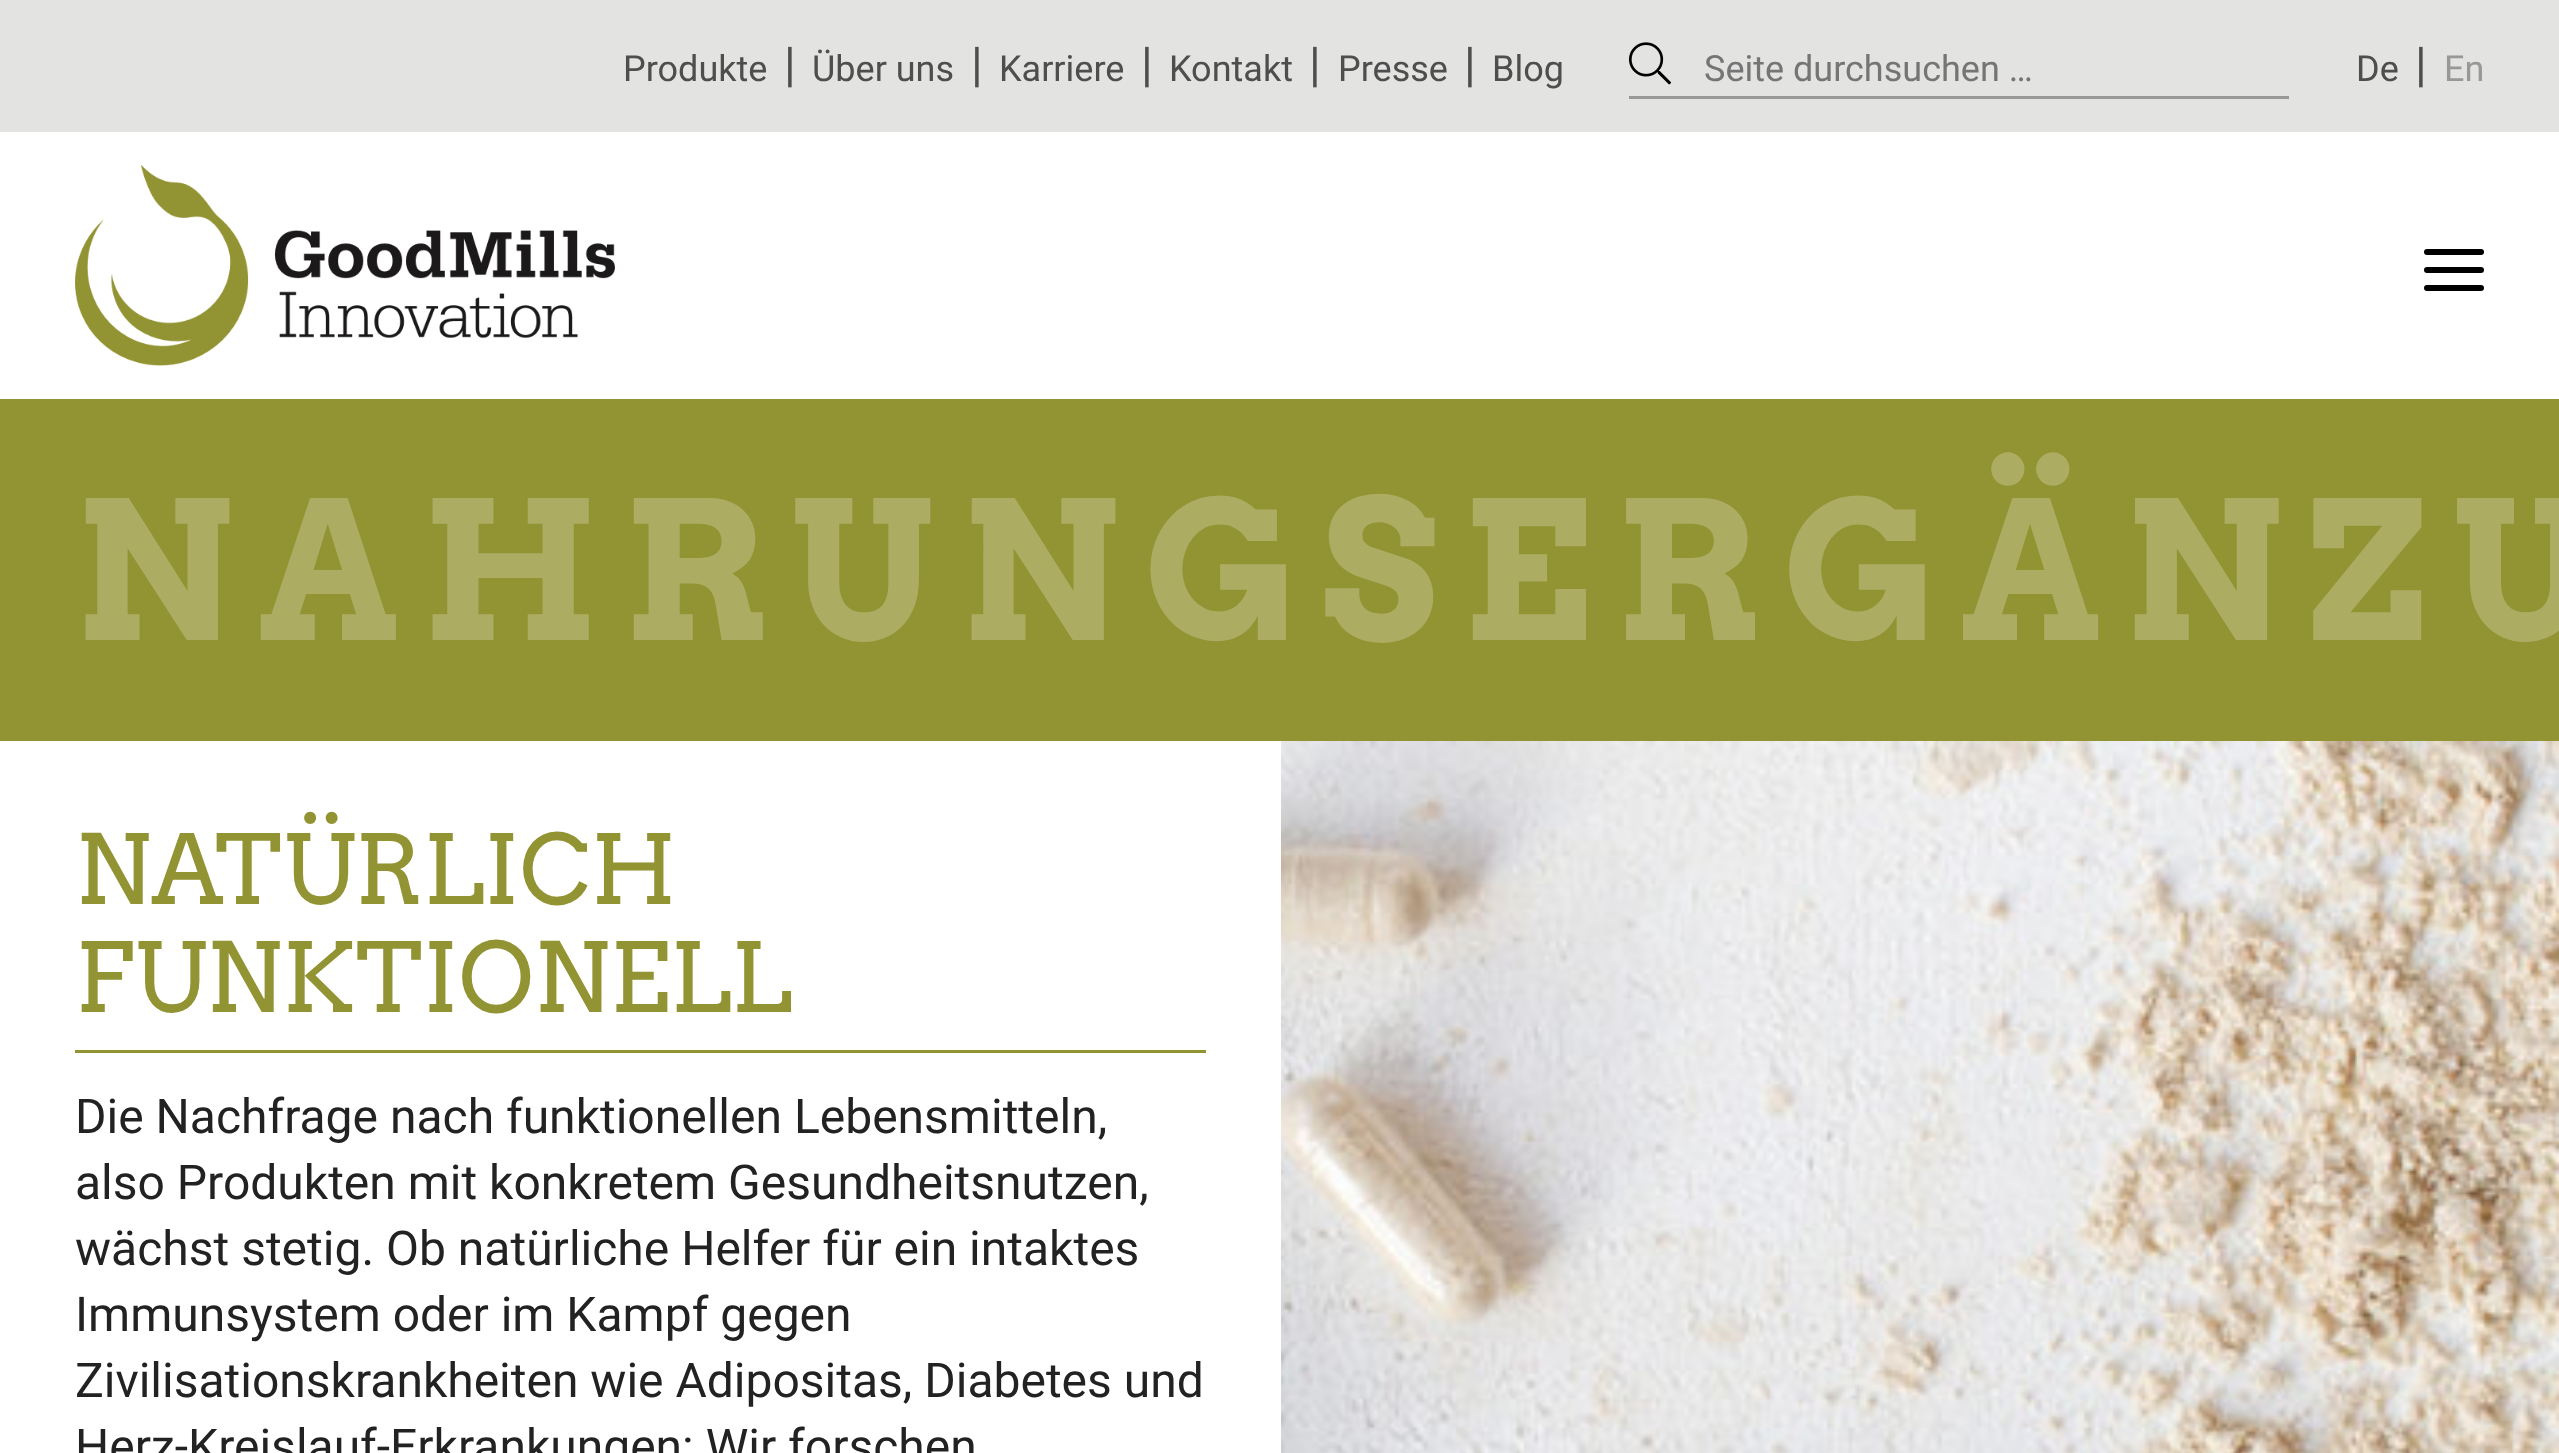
(async () => {
  const canvas = document.querySelector("canvas");
  canvas.width = 2559;
  canvas.height = 1453;
  const ctx = canvas.getContext("2d");
  ctx.miterLimit = 4;
  ctx.fontKerning = "normal";
  async function loadImage(src) {
    const img = new Image();
    img.src = src;
    await img.decode();
    return img;
  }

  ctx.fillStyle = "#ffffff";
  ctx.fillRect(0, 0, 2559, 1453);
  ctx.fillStyle = "#e3e4e2";
  ctx.fillRect(0, 0, 2559, 132);
  ctx.drawImage(await loadImage("img/1.png"), 1629, 42, 42, 43);
  ctx.fillStyle = "#989997";
  ctx.fillRect(1629, 96, 660, 3);
  ctx.drawImage(await loadImage("img/2.png"), 75, 165, 540, 201);
  ctx.fillStyle = "#000000";
  ctx.beginPath();
  ctx.roundRect(2424, 267, 60, 6, 3);
  ctx.fill();
  ctx.beginPath();
  ctx.roundRect(2424, 249, 60, 6, 3);
  ctx.fill();
  ctx.beginPath();
  ctx.roundRect(2424, 285, 60, 6, 3);
  ctx.fill();
  ctx.fillStyle = "#929332";
  ctx.fillRect(0, 399, 2559, 342);
  ctx.fillRect(75, 1050, 1131, 3);
  ctx.drawImage(await loadImage("img/3.png"), 1281, 741, 1278, 712);
  ctx.font = "36px Roboto";
  ctx.fillStyle = "#4d4e4d";
  ctx.fillText("Produkte", 623, 81);
  ctx.font = "48px Roboto";
  ctx.fillText("|", 784, 81);
  ctx.font = "36px Roboto";
  ctx.fillText("Über uns", 812, 81);
  ctx.font = "48px Roboto";
  ctx.fillText("|", 971, 81);
  ctx.font = "36px Roboto";
  ctx.fillText("Karriere", 999, 81);
  ctx.font = "48px Roboto";
  ctx.fillText("|", 1141, 81);
  ctx.font = "36px Roboto";
  ctx.fillText("Kontakt", 1169, 81);
  ctx.font = "48px Roboto";
  ctx.fillText("|", 1309, 81);
  ctx.font = "36px Roboto";
  ctx.fillText("Presse", 1338, 81);
  ctx.font = "48px Roboto";
  ctx.fillText("|", 1464, 81);
  ctx.font = "36px Roboto";
  ctx.fillText("Blog", 1492, 81);
  ctx.fillStyle = "#757575";
  ctx.fillText("Seite durchsuchen …", 1704, 81);
  ctx.fillStyle = "#4d4e4d";
  ctx.fillText("De", 2356, 81);
  ctx.font = "48px Roboto";
  ctx.fillText("|", 2415, 81);
  ctx.font = "36px Roboto";
  ctx.fillStyle = "#989997";
  ctx.fillText("En", 2444, 81);
  ctx.letterSpacing = "24px";
  ctx.font = "bold 192px Arvo";
  ctx.fillStyle = "#acad63";
  ctx.fillText("NAHRUNGSERGÄNZU", 75, 640);
  ctx.letterSpacing = "0px";
  ctx.font = "96px Arvo";
  ctx.fillStyle = "#929332";
  ctx.fillText("NATÜRLICH", 75, 904);
  ctx.fillText("FUNKTIONELL", 75, 1012);
  ctx.font = "48px Roboto";
  ctx.fillStyle = "#222222";
  for (const [text, x, y] of [
    ["Die Nachfrage nach funktionellen Lebensmitteln,", 75, 1133],
    ["also Produkten mit konkretem Gesundheitsnutzen,", 75, 1199],
    ["wächst stetig. Ob natürliche Helfer für ein intaktes", 75, 1265],
    ["Immunsystem oder im Kampf gegen", 75, 1331],
    ["Zivilisationskrankheiten wie Adipositas, Diabetes und", 75, 1397],
    ["Herz-Kreislauf-Erkrankungen: Wir forschen", 75, 1463],
  ]) {
    ctx.fillText(text, x, y);
  }
})();
